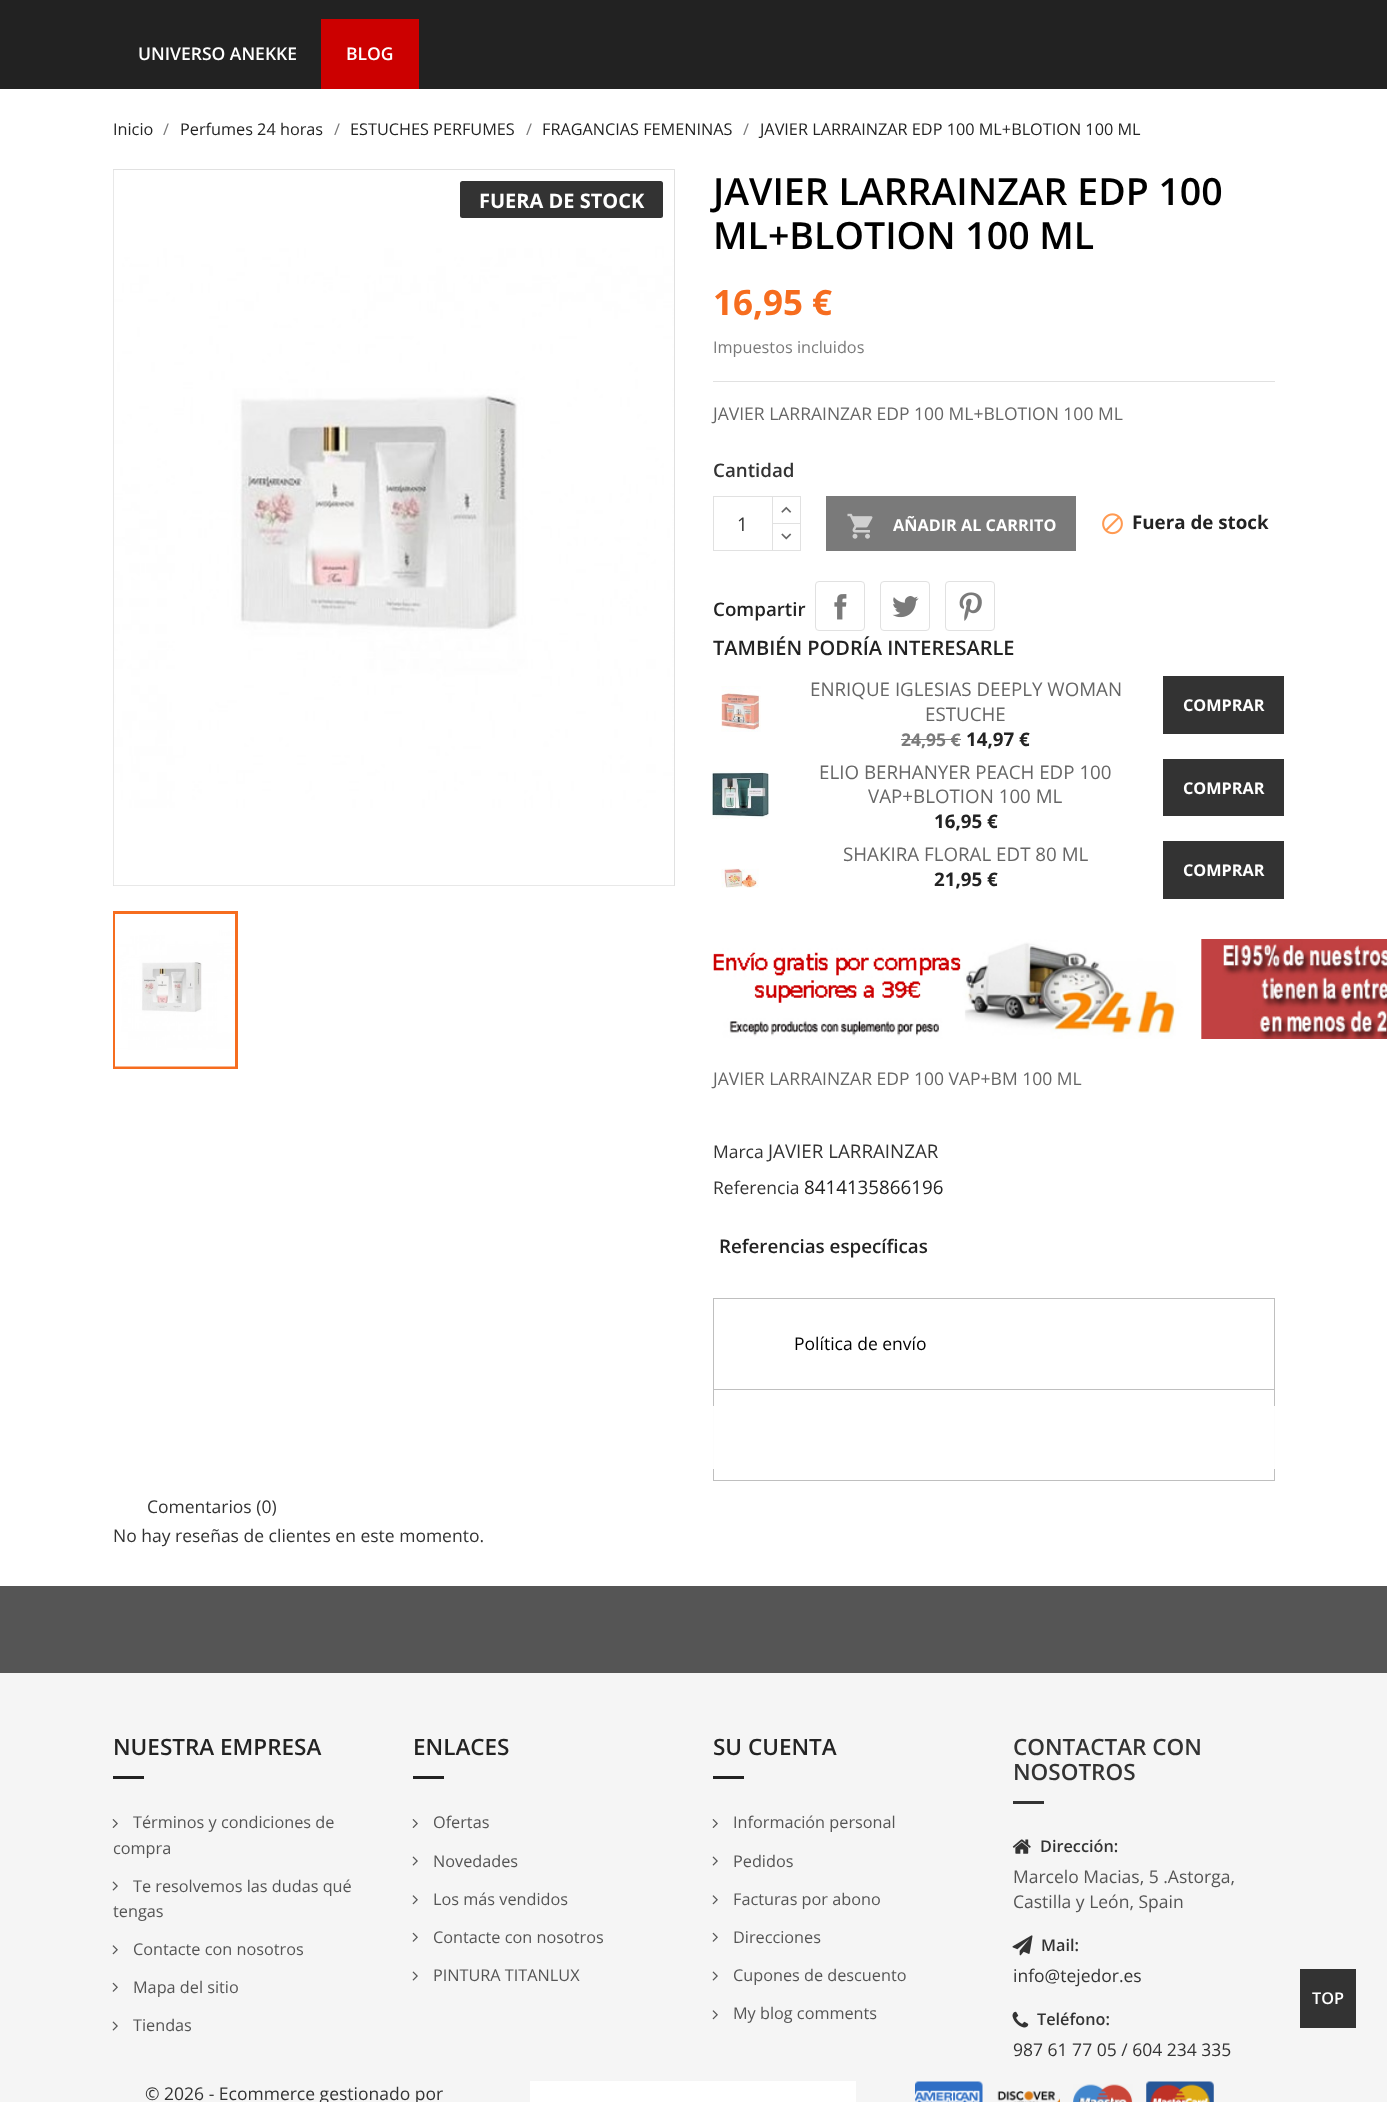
(async () => {
  const canvas = document.querySelector("canvas");
  canvas.width = 1387;
  canvas.height = 2102;
  const ctx = canvas.getContext("2d");
  ctx.miterLimit = 4;
  ctx.fontKerning = "normal";
  async function loadImage(src) {
    const img = new Image();
    img.src = src;
    await img.decode();
    return img;
  }

  ctx.fillStyle = "#ffffff";
  ctx.fillRect(0, 0, 1387, 2102);
  ctx.fillStyle = "#222222";
  ctx.fillRect(0, 0, 1387, 89);
  ctx.fillStyle = "#cc0000";
  ctx.fillRect(321, 19, 98, 70);
  ctx.strokeStyle = "#e1e1e1";
  ctx.strokeRect(113.5, 169.5, 561, 716);
  ctx.drawImage(await loadImage("img/1.png"), 113, 170, 561, 716);
  ctx.strokeStyle = "#f66d1f";
  ctx.lineWidth = 3;
  ctx.strokeRect(114.5, 912.5, 122, 155);
  ctx.drawImage(await loadImage("img/2.png"), 115, 914, 120, 153);
  ctx.fillStyle = "#333333";
  ctx.beginPath();
  ctx.roundRect(460, 181, 203, 37, 2.5);
  ctx.fill();
  ctx.fillStyle = "#e1e1e1";
  ctx.fillRect(713, 381, 562, 1);
  ctx.strokeStyle = "#e1e1e1";
  ctx.lineWidth = 1;
  ctx.strokeRect(771.5, 496.5, 29, 28);
  ctx.fillStyle = "#ffffff";
  ctx.fillRect(773, 524, 27, 1);
  ctx.strokeRect(771.5, 523.5, 29, 27);
  ctx.fillRect(771, 497, 1, 53);
  ctx.strokeRect(713.5, 496.5, 59, 54);
  ctx.drawImage(await loadImage("img/3.png"), 781, 506, 11, 7);
  ctx.drawImage(await loadImage("img/4.png"), 781, 533, 11, 7);
  ctx.fillStyle = "#7a7a7a";
  ctx.fillRect(826, 496, 250, 55);
  ctx.drawImage(await loadImage("img/5.png"), 847, 513, 26, 26);
  ctx.drawImage(await loadImage("img/6.png"), 1102, 513, 21, 22);
  ctx.drawImage(await loadImage("img/7.png"), 834, 594, 13, 26);
  ctx.beginPath();
  ctx.roundRect(815.5, 581.5, 49, 49, 3.5);
  ctx.stroke();
  ctx.drawImage(await loadImage("img/8.png"), 892, 596, 27, 22);
  ctx.beginPath();
  ctx.roundRect(880.5, 581.5, 49, 49, 3.5);
  ctx.stroke();
  ctx.drawImage(await loadImage("img/9.png"), 959, 592, 23, 29);
  ctx.beginPath();
  ctx.roundRect(945.5, 581.5, 49, 49, 3.5);
  ctx.stroke();
  ctx.fillRect(901, 739, 60, 1);
  ctx.drawImage(await loadImage("img/10.png"), 721, 686, 40, 46);
  ctx.strokeStyle = "#bfbfbf";
  ctx.strokeRect(713.5, 1298.5, 561, 182);
  ctx.fillStyle = "rgba(255, 255, 255, 0.8)";
  ctx.fillRect(713, 1406, 562, 63);
  ctx.fillStyle = "#333333";
  ctx.fillRect(1163, 676, 121, 58);
  ctx.drawImage(await loadImage("img/11.png"), 712, 770, 57, 49);
  ctx.fillStyle = "rgba(255, 255, 255, 0.8)";
  ctx.fillRect(713, 1406, 562, 63);
  ctx.fillStyle = "#333333";
  ctx.fillRect(1163, 759, 121, 57);
  ctx.drawImage(await loadImage("img/12.png"), 721, 868, 38, 20);
  ctx.fillRect(1163, 841, 121, 58);
  ctx.drawImage(await loadImage("img/13.png"), 713, 939, 674, 100);
  for (const [x, y, w, h, color] of [
    [714, 1389, 560, 1, "#bfbfbf"],
    [0, 1673, 1387, 429, "#f5f5f5"],
    [0, 1586, 1387, 87, "#555555"],
    [113, 1776, 31, 3, "#222222"],
  ]) {
    ctx.fillStyle = color;
    ctx.fillRect(x, y, w, h);
  }
  ctx.drawImage(await loadImage("img/14.png"), 112, 1819, 6, 9);
  ctx.drawImage(await loadImage("img/15.png"), 112, 1881, 6, 10);
  ctx.drawImage(await loadImage("img/16.png"), 112, 1945, 6, 10);
  ctx.drawImage(await loadImage("img/17.png"), 112, 1982, 6, 10);
  ctx.drawImage(await loadImage("img/15.png"), 112, 2021, 6, 10);
  ctx.fillRect(413, 1776, 31, 3);
  ctx.drawImage(await loadImage("img/14.png"), 412, 1819, 6, 9);
  ctx.drawImage(await loadImage("img/15.png"), 412, 1856, 6, 10);
  ctx.drawImage(await loadImage("img/16.png"), 412, 1895, 6, 10);
  ctx.drawImage(await loadImage("img/17.png"), 412, 1932, 6, 10);
  ctx.drawImage(await loadImage("img/15.png"), 412, 1971, 6, 10);
  ctx.fillRect(713, 1776, 31, 3);
  ctx.drawImage(await loadImage("img/14.png"), 712, 1819, 6, 9);
  ctx.drawImage(await loadImage("img/15.png"), 712, 1856, 6, 10);
  ctx.drawImage(await loadImage("img/16.png"), 712, 1895, 6, 10);
  ctx.drawImage(await loadImage("img/17.png"), 712, 1932, 6, 10);
  ctx.drawImage(await loadImage("img/15.png"), 712, 1971, 6, 10);
  ctx.drawImage(await loadImage("img/16.png"), 712, 2010, 6, 10);
  ctx.fillStyle = "#333333";
  ctx.fillRect(1013, 1801, 31, 3);
  ctx.drawImage(await loadImage("img/18.png"), 1012, 1839, 19, 15);
  ctx.drawImage(await loadImage("img/19.png"), 1012, 1935, 21, 21);
  ctx.drawImage(await loadImage("img/20.png"), 1012, 2011, 17, 17);
  ctx.fillRect(1300, 1969, 56, 59);
  ctx.fillStyle = "#ffffff";
  ctx.fillRect(530, 2081, 326, 21);
  ctx.drawImage(await loadImage("img/21.png"), 915, 2081, 68, 21);
  ctx.drawImage(await loadImage("img/22.png"), 997, 2091, 63, 11);
  ctx.drawImage(await loadImage("img/23.png"), 1073, 2084, 60, 18);
  ctx.drawImage(await loadImage("img/24.png"), 1146, 2081, 68, 21);
  ctx.font = "600 17.5px Open Sans";
  ctx.fillText("UNIVERSO ANEKKE", 138, 60);
  ctx.fillText("BLOG", 346, 60);
  ctx.font = "16.25px Open Sans";
  ctx.fillStyle = "#232323";
  ctx.fillText("Inicio", 113, 135);
  ctx.fillStyle = "#7a7a7a";
  ctx.fillText("/", 163, 135);
  ctx.fillStyle = "#232323";
  ctx.fillText("Perfumes 24 horas", 180, 135);
  ctx.fillStyle = "#7a7a7a";
  ctx.fillText("/", 334, 135);
  ctx.fillStyle = "#232323";
  ctx.fillText("ESTUCHES PERFUMES", 350, 135);
  ctx.fillStyle = "#7a7a7a";
  ctx.fillText("/", 526, 135);
  ctx.fillStyle = "#232323";
  ctx.fillText("FRAGANCIAS FEMENINAS", 542, 135);
  ctx.fillStyle = "#7a7a7a";
  ctx.fillText("/", 743, 135);
  ctx.fillStyle = "#232323";
  ctx.fillText("JAVIER LARRAINZAR EDP 100 ML+BLOTION 100 ML", 760, 135);
  ctx.font = "bold 20px Open Sans";
  ctx.fillStyle = "#ffffff";
  ctx.fillText("FUERA DE STOCK", 479, 208);
  ctx.font = "600 37.5px Open Sans";
  ctx.fillStyle = "#000000";
  ctx.fillText("JAVIER LARRAINZAR EDP 100", 713, 205);
  ctx.fillText("ML+BLOTION 100 ML", 713, 249);
  ctx.font = "bold 35px Open Sans";
  ctx.fillStyle = "#f66d1f";
  ctx.fillText("16,95 €", 713, 315);
  ctx.font = "16.25px Open Sans";
  ctx.fillStyle = "#7a7a7a";
  ctx.fillText("Impuestos incluidos", 713, 353);
  ctx.font = "17.5px Open Sans";
  ctx.fillStyle = "#666666";
  ctx.fillText("JAVIER LARRAINZAR EDP 100 ML+BLOTION 100 ML", 713, 420);
  ctx.font = "600 18.75px Open Sans";
  ctx.fillStyle = "#333333";
  ctx.fillText("Cantidad", 713, 477);
  ctx.font = "18.75px Open Sans";
  ctx.fillText("1", 737, 531);
  ctx.font = "bold 16.25px Open Sans";
  ctx.fillStyle = "#ffffff";
  ctx.fillText("AÑADIR AL CARRITO", 893, 531);
  ctx.font = "bold 18.75px Open Sans";
  ctx.fillStyle = "#232323";
  ctx.fillText("Fuera de stock", 1132, 529);
  ctx.font = "600 18.75px Open Sans";
  ctx.fillText("Compartir", 713, 616);
  ctx.font = "600 20px Open Sans";
  ctx.fillText("TAMBIÉN PODRÍA INTERESARLE", 713, 655);
  ctx.font = "18.75px Open Sans";
  ctx.fillStyle = "#666666";
  ctx.fillText("ENRIQUE IGLESIAS DEEPLY WOMAN", 810, 696);
  ctx.fillText("ESTUCHE", 925, 721);
  ctx.font = "bold 17.5px Open Sans";
  ctx.fillStyle = "#7a7a7a";
  ctx.fillText("24,95 €", 901, 746);
  ctx.font = "bold 18.75px Open Sans";
  ctx.fillStyle = "#232323";
  ctx.fillText("14,97 €", 966, 746);
  ctx.font = "bold 16.25px Open Sans";
  ctx.fillStyle = "#ffffff";
  ctx.fillText("COMPRAR", 1183, 711);
  ctx.font = "18.75px Open Sans";
  ctx.fillStyle = "#666666";
  ctx.fillText("ELIO BERHANYER PEACH EDP 100", 819, 779);
  ctx.fillText("VAP+BLOTION 100 ML", 868, 803);
  ctx.font = "bold 18.75px Open Sans";
  ctx.fillStyle = "#232323";
  ctx.fillText("16,95 €", 934, 828);
  ctx.font = "bold 16.25px Open Sans";
  ctx.fillStyle = "#ffffff";
  ctx.fillText("COMPRAR", 1183, 794);
  ctx.font = "18.75px Open Sans";
  ctx.fillStyle = "#666666";
  ctx.fillText("SHAKIRA FLORAL EDT 80 ML", 843, 861);
  ctx.font = "bold 18.75px Open Sans";
  ctx.fillStyle = "#232323";
  ctx.fillText("21,95 €", 934, 886);
  ctx.font = "bold 16.25px Open Sans";
  ctx.fillStyle = "#ffffff";
  ctx.fillText("COMPRAR", 1183, 876);
  ctx.font = "17.5px Open Sans";
  ctx.fillStyle = "#666666";
  ctx.fillText("JAVIER LARRAINZAR EDP 100 VAP+BM 100 ML", 713, 1085);
  ctx.fillStyle = "#333333";
  ctx.fillText("Marca", 713, 1158);
  ctx.font = "18.75px Open Sans";
  ctx.fillText("JAVIER LARRAINZAR", 768, 1158);
  ctx.font = "17.5px Open Sans";
  ctx.fillText("Referencia", 713, 1194);
  ctx.font = "18.75px Open Sans";
  ctx.fillStyle = "#232323";
  ctx.fillText("8414135866196", 804, 1194);
  ctx.font = "600 18.75px Open Sans";
  ctx.fillText("Referencias específicas", 719, 1253);
  ctx.font = "17.5px Open Sans";
  ctx.fillStyle = "#000000";
  ctx.fillText("Política de envío", 794, 1350);
  ctx.fillStyle = "#333333";
  ctx.fillText("Comentarios (0)", 147, 1513);
  ctx.fillText("No hay reseñas de clientes en este momento.", 113, 1542);
  ctx.font = "600 22.5px Open Sans";
  ctx.fillStyle = "#232323";
  ctx.fillText("NUESTRA EMPRESA", 113, 1755);
  ctx.font = "16.25px Open Sans";
  ctx.fillStyle = "#555555";
  for (const [text, x, y] of [
    ["Términos y condiciones de", 133, 1828],
    ["compra", 113, 1854],
    ["Te resolvemos las dudas qué", 133, 1892],
    ["tengas", 113, 1917],
    ["Contacte con nosotros", 133, 1955],
    ["Mapa del sitio", 133, 1993],
    ["Tiendas", 133, 2031],
  ]) {
    ctx.fillText(text, x, y);
  }
  ctx.font = "600 22.5px Open Sans";
  ctx.fillStyle = "#232323";
  ctx.fillText("ENLACES", 413, 1755);
  ctx.font = "16.25px Open Sans";
  ctx.fillStyle = "#555555";
  for (const [text, x, y] of [
    ["Ofertas", 433, 1828],
    ["Novedades", 433, 1867],
    ["Los más vendidos", 433, 1905],
    ["Contacte con nosotros", 433, 1943],
    ["PINTURA TITANLUX", 433, 1981],
  ]) {
    ctx.fillText(text, x, y);
  }
  ctx.font = "600 22.5px Open Sans";
  ctx.fillStyle = "#232323";
  ctx.fillText("SU CUENTA", 713, 1755);
  ctx.font = "16.25px Open Sans";
  ctx.fillStyle = "#555555";
  for (const [text, x, y] of [
    ["Información personal", 733, 1828],
    ["Pedidos", 733, 1867],
    ["Facturas por abono", 733, 1905],
    ["Direcciones", 733, 1943],
    ["Cupones de descuento", 733, 1981],
    ["My blog comments", 733, 2019],
  ]) {
    ctx.fillText(text, x, y);
  }
  ctx.font = "600 22.5px Open Sans";
  ctx.fillStyle = "#333333";
  ctx.fillText("CONTACTAR CON", 1013, 1755);
  ctx.fillText("NOSOTROS", 1013, 1780);
  ctx.font = "600 16.25px Open Sans";
  ctx.fillText("Dirección:", 1040, 1852);
  ctx.font = "17.5px Open Sans";
  ctx.fillStyle = "#555555";
  ctx.fillText("Marcelo Macias, 5 .Astorga,", 1013, 1883);
  ctx.fillText("Castilla y León, Spain", 1013, 1908);
  ctx.font = "600 16.25px Open Sans";
  ctx.fillStyle = "#333333";
  ctx.fillText("Mail:", 1041, 1951);
  ctx.font = "17.5px Open Sans";
  ctx.fillText("info@tejedor.es", 1013, 1982);
  ctx.font = "600 16.25px Open Sans";
  ctx.fillText("Teléfono:", 1037, 2025);
  ctx.font = "17.5px Open Sans";
  ctx.fillText("987 61 77 05 / 604 234 335", 1013, 2056);
  ctx.font = "600 16.25px Open Sans";
  ctx.fillStyle = "#ffffff";
  ctx.fillText("TOP", 1312, 2004);
  ctx.font = "17.5px Open Sans";
  ctx.fillStyle = "#333333";
  ctx.fillText("© 2026 - Ecommerce gestionado por", 145, 2100);
})();
